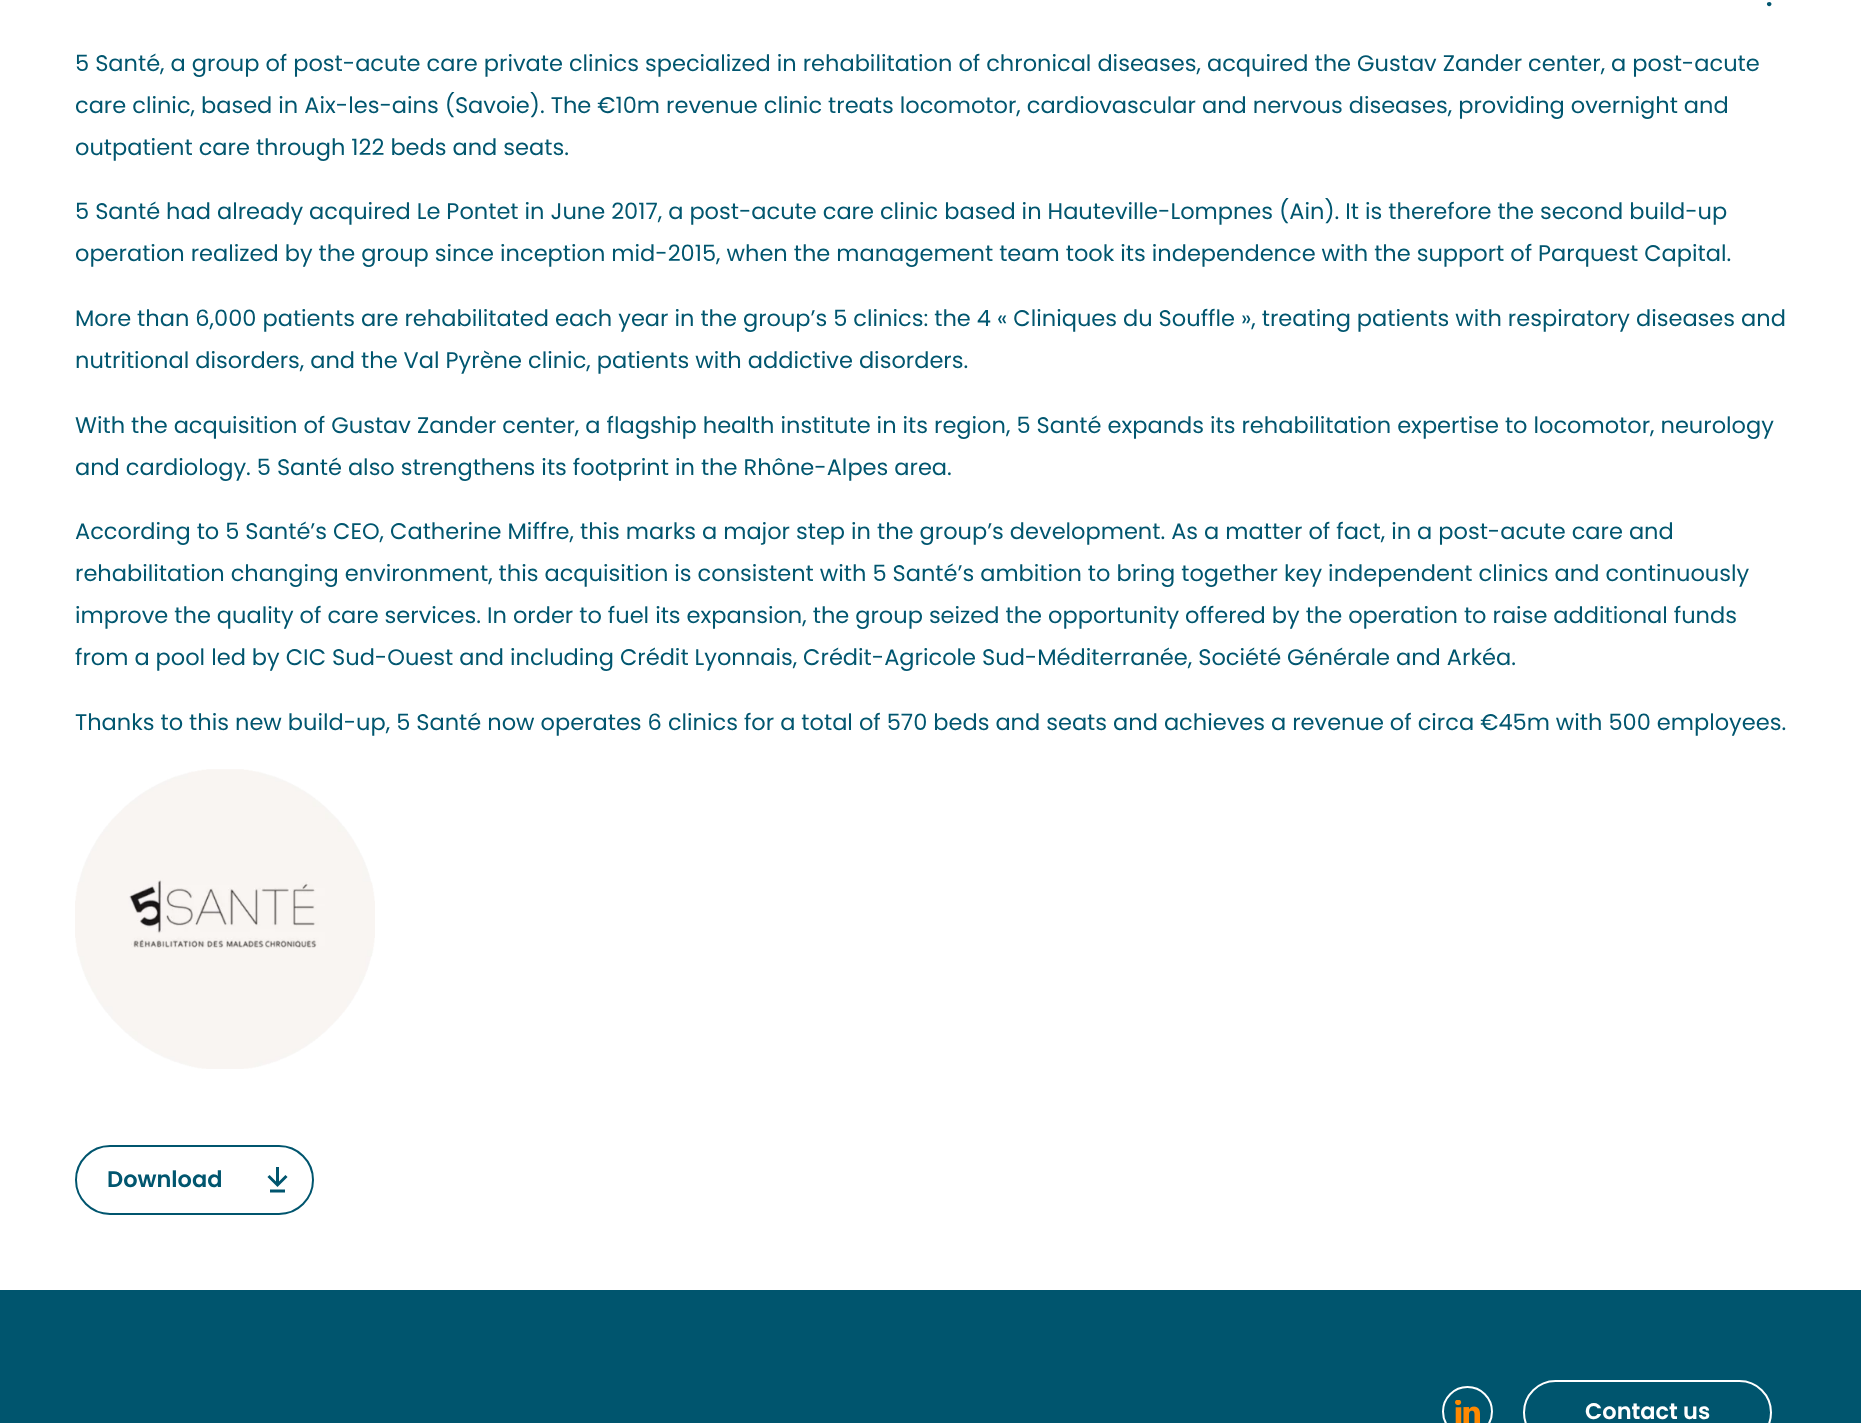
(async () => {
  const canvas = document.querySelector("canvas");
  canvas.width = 1861;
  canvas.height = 1423;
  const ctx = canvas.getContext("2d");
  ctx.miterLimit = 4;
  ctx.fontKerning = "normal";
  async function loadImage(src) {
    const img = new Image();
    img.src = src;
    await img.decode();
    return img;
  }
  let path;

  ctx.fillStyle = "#ffffff";
  ctx.fillRect(0, 0, 1861, 1423);
  ctx.drawImage(await loadImage("img/1.png"), 75, 769, 300, 300);
  ctx.beginPath();
  ctx.roundRect(76, 1146, 237, 68, 34);
  ctx.strokeStyle = "#00556e";
  ctx.lineWidth = 2;
  ctx.stroke();
  path = new Path2D("M270 1191H285M268.5 1176L277.5 1185L286.5 1176M277.5 1185V1167");
  ctx.lineWidth = 3;
  ctx.stroke(path);
  ctx.fillStyle = "#00556e";
  ctx.fillRect(0, 1290, 1861, 133);
  ctx.beginPath();
  ctx.arc(1467.5, 1411.5, 24.5, 0, Math.PI * 2);
  ctx.strokeStyle = "#ffffff";
  ctx.lineWidth = 2;
  ctx.stroke();
  ctx.drawImage(await loadImage("img/2.png"), 1455, 1400, 25, 23);
  ctx.beginPath();
  ctx.roundRect(1524, 1381, 247, 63, 31.5);
  ctx.stroke();
  ctx.font = "bold 22.5px Poppins";
  ctx.fillStyle = "#01566f";
  ctx.fillText(".", 1766, 6);
  ctx.font = "22.5px Poppins";
  for (const [text, x, y] of [
    ["5 Santé, a group of post-acute care private clinics specialized in rehabilitation of chronical diseases, acquired the Gustav Zander center, a post-acute", 75, 71],
    ["care clinic, based in Aix-les-ains (Savoie). The €10m revenue clinic treats locomotor, cardiovascular and nervous diseases, providing overnight and", 75, 113],
    ["outpatient care through 122 beds and seats.", 75, 155],
    ["5 Santé had already acquired Le Pontet in June 2017, a post-acute care clinic based in Hauteville-Lompnes (Ain). It is therefore the second build-up", 75, 219],
    ["operation realized by the group since inception mid-2015, when the management team took its independence with the support of Parquest Capital.", 75, 261],
    ["More than 6,000 patients are rehabilitated each year in the group’s 5 clinics: the 4 « Cliniques du Souffle », treating patients with respiratory diseases and", 75, 326],
    ["nutritional disorders, and the Val Pyrène clinic, patients with addictive disorders.", 75, 368],
    ["With the acquisition of Gustav Zander center, a flagship health institute in its region, 5 Santé expands its rehabilitation expertise to locomotor, neurology", 75, 433],
    ["and cardiology. 5 Santé also strengthens its footprint in the Rhône-Alpes area.", 75, 475],
    ["According to 5 Santé’s CEO, Catherine Miffre, this marks a major step in the group’s development. As a matter of fact, in a post-acute care and", 75, 539],
    ["rehabilitation changing environment, this acquisition is consistent with 5 Santé’s ambition to bring together key independent clinics and continuously", 75, 581],
    ["improve the quality of care services. In order to fuel its expansion, the group seized the opportunity offered by the operation to raise additional funds", 75, 623],
    ["from a pool led by CIC Sud-Ouest and including Crédit Lyonnais, Crédit-Agricole Sud-Méditerranée, Société Générale and Arkéa.", 75, 665],
    ["Thanks to this new build-up, 5 Santé now operates 6 clinics for a total of 570 beds and seats and achieves a revenue of circa €45m with 500 employees.", 75, 730],
  ]) {
    ctx.fillText(text, x, y);
  }
  ctx.font = "600 22.5px Poppins";
  ctx.fillText("Download", 107, 1187);
  ctx.fillStyle = "#ffffff";
  ctx.fillText("Contact us", 1585, 1419);
})();
